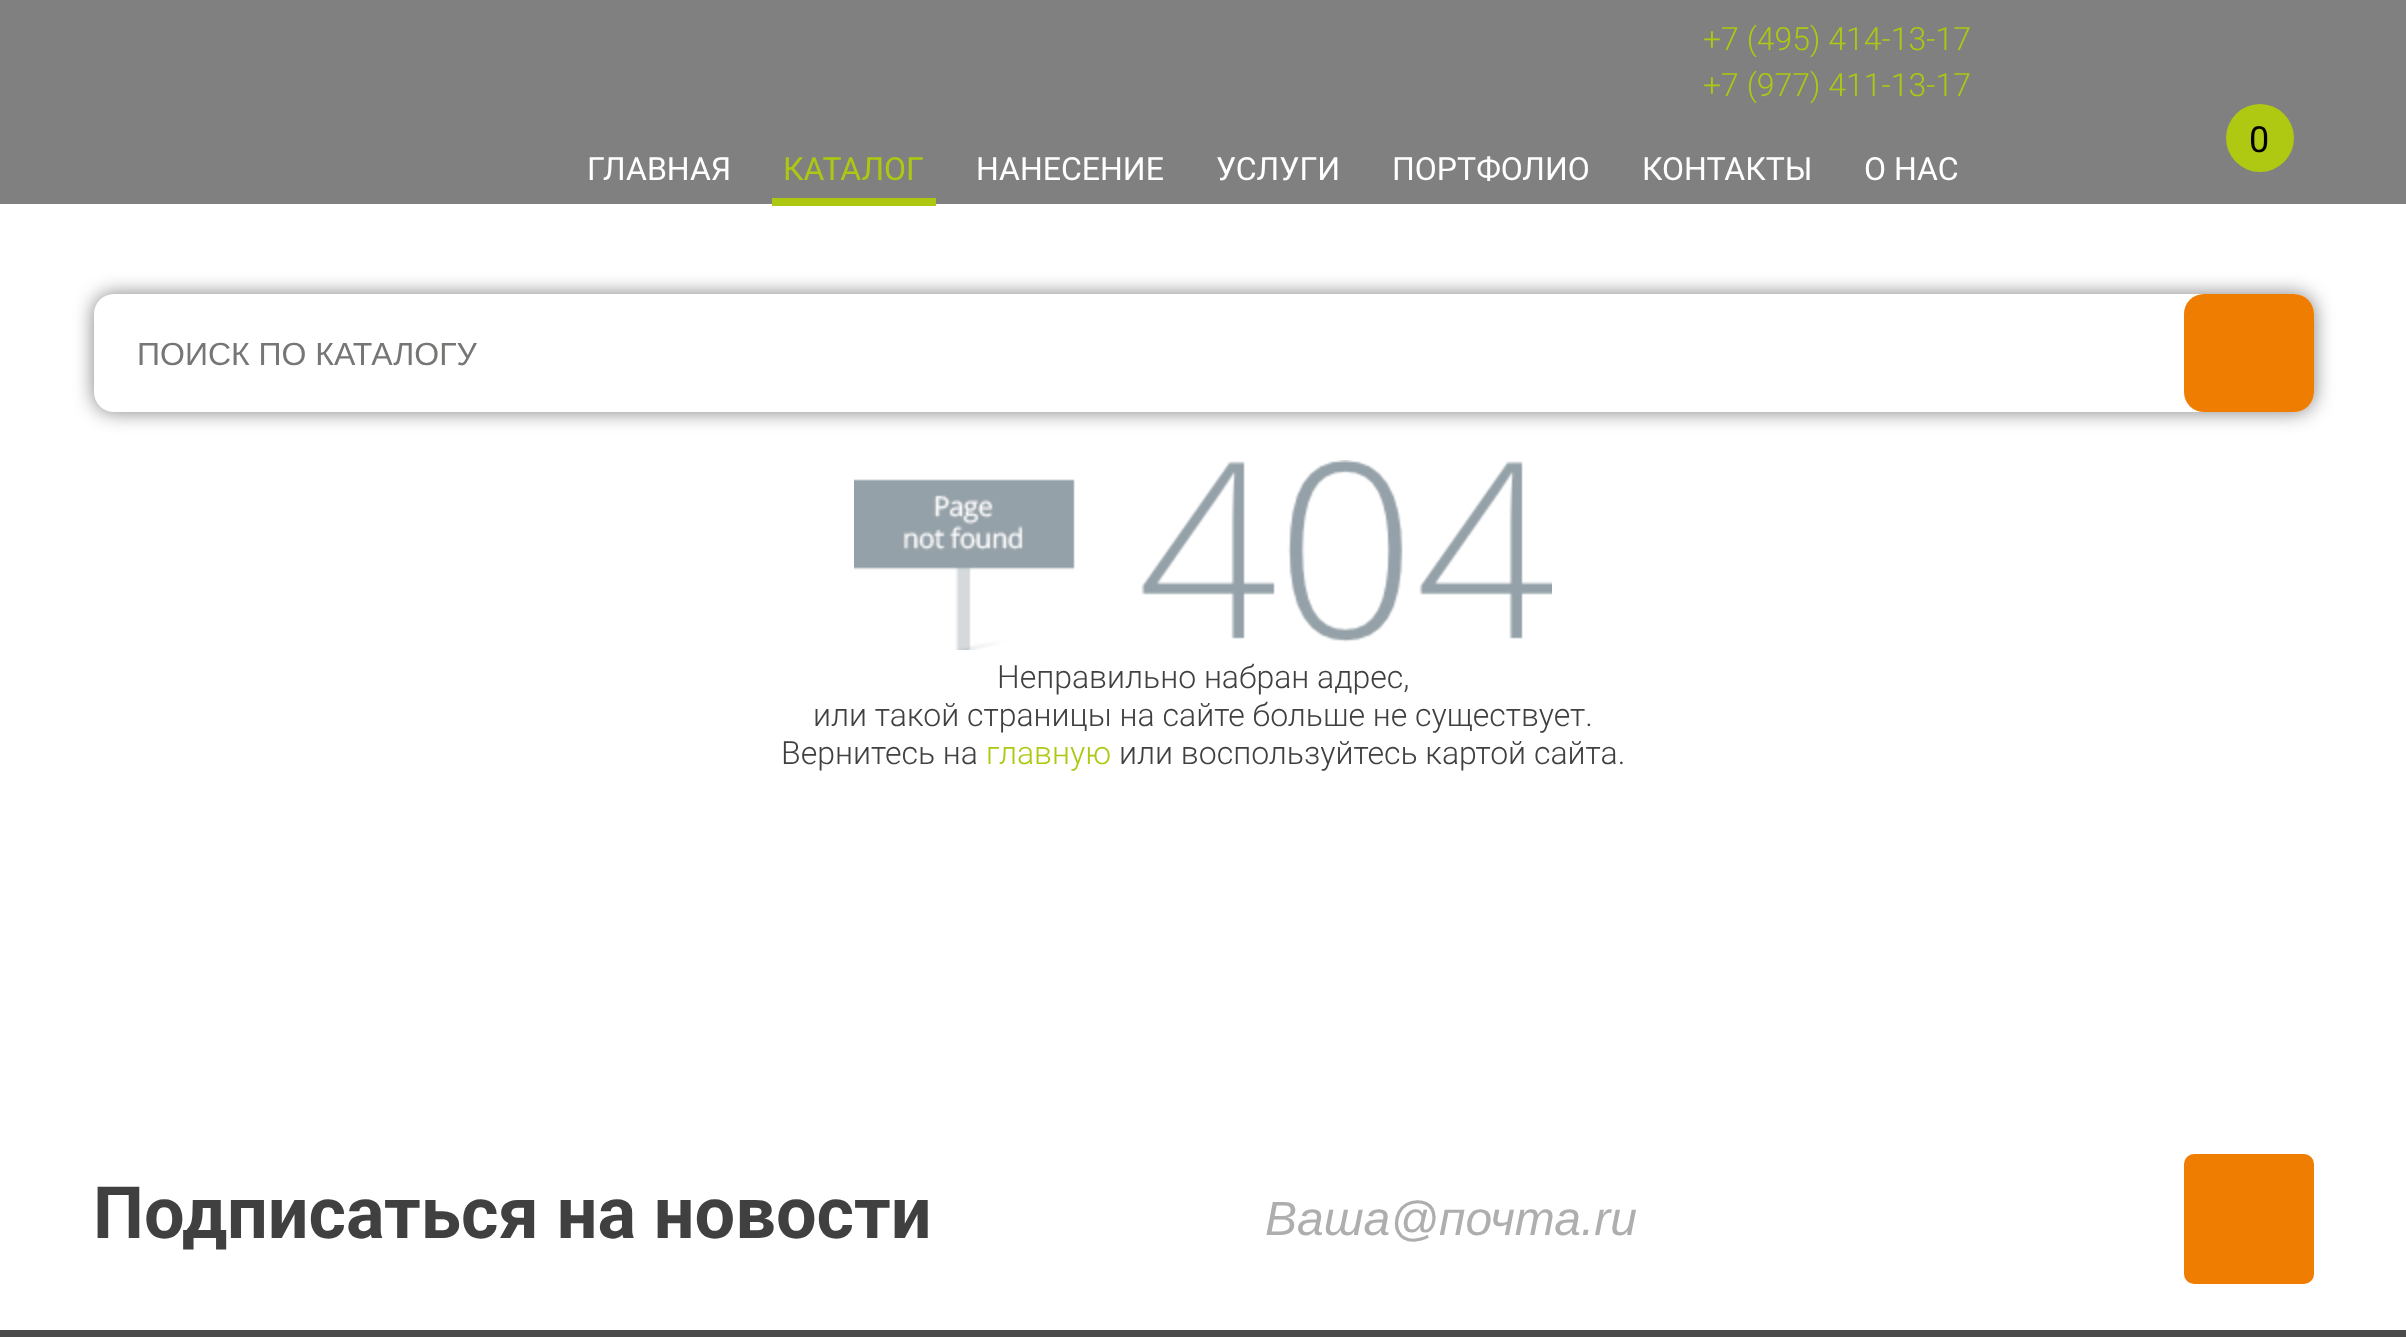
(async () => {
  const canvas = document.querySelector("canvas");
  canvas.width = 2406;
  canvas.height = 1337;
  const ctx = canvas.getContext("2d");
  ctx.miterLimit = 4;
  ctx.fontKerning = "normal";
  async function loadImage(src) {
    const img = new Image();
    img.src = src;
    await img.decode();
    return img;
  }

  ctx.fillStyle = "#ffffff";
  ctx.fillRect(0, 0, 2406, 1337);
  ctx.fillStyle = "#808080";
  ctx.fillRect(0, 0, 2406, 204);
  ctx.fillStyle = "#aec811";
  ctx.fillRect(772, 198, 164, 8);
  ctx.fillStyle = "#afc811";
  ctx.beginPath();
  ctx.arc(2260, 138, 34, 0, Math.PI * 2);
  ctx.fill();
  ctx.fillStyle = "rgba(0, 0, 0, 0.5)";
  ctx.filter = "blur(10px)";
  ctx.beginPath();
  ctx.roundRect(94, 294, 2220, 118, 20);
  ctx.fill();
  ctx.filter = "none";
  ctx.fillStyle = "#ffffff";
  ctx.beginPath();
  ctx.roundRect(94, 294, 2220, 118, 20);
  ctx.fill();
  ctx.fillStyle = "#ee7d02";
  ctx.beginPath();
  ctx.roundRect(2184, 294, 130, 118, 20);
  ctx.fill();
  ctx.drawImage(await loadImage("img/1.png"), 854, 460, 698, 190);
  ctx.beginPath();
  ctx.roundRect(2184, 1154, 130, 130, 10);
  ctx.fill();
  ctx.fillStyle = "#4b4b4b";
  ctx.fillRect(0, 1330, 2406, 7);
  ctx.font = "300 32px Roboto";
  ctx.fillStyle = "#aec811";
  ctx.fillText("+7 (495) 414-13-17", 1703, 50);
  ctx.fillText("+7 (977) 411-13-17", 1703, 96);
  ctx.font = "32px Roboto";
  ctx.fillStyle = "#ffffff";
  ctx.fillText("ГЛАВНАЯ", 587, 180);
  ctx.fillStyle = "#aec811";
  ctx.fillText("КАТАЛОГ", 783, 180);
  ctx.fillStyle = "#ffffff";
  for (const [text, x, y] of [
    ["НАНЕСЕНИЕ", 976, 180],
    ["УСЛУГИ", 1216, 180],
    ["ПОРТФОЛИО", 1392, 180],
    ["КОНТАКТЫ", 1642, 180],
    ["О НАС", 1864, 180],
  ]) {
    ctx.fillText(text, x, y);
  }
  ctx.font = "36px Roboto";
  ctx.fillStyle = "#000000";
  ctx.fillText("0", 2249, 152);
  ctx.font = "32px Liberation Sans";
  ctx.fillStyle = "#767675";
  ctx.fillText("ПОИСК ПО КАТАЛОГУ", 137, 365);
  ctx.font = "300 32px Roboto";
  ctx.fillStyle = "#404040";
  for (const [text, x, y] of [
    ["Неправильно набран адрес,", 997, 688],
    ["или такой страницы на сайте больше не существует.", 813, 726],
    ["Вернитесь на", 781, 764],
  ]) {
    ctx.fillText(text, x, y);
  }
  ctx.fillStyle = "#aec811";
  ctx.fillText("главную", 986, 764);
  ctx.fillStyle = "#404040";
  ctx.fillText("или воспользуйтесь картой сайта.", 1119, 764);
  ctx.font = "bold 72px Roboto";
  ctx.fillText("Подписаться на новости", 93, 1238);
  ctx.font = "italic 48px Liberation Sans";
  ctx.fillStyle = "#afaeae";
  ctx.fillText("Ваша@почта.ru", 1265, 1235);
})();
